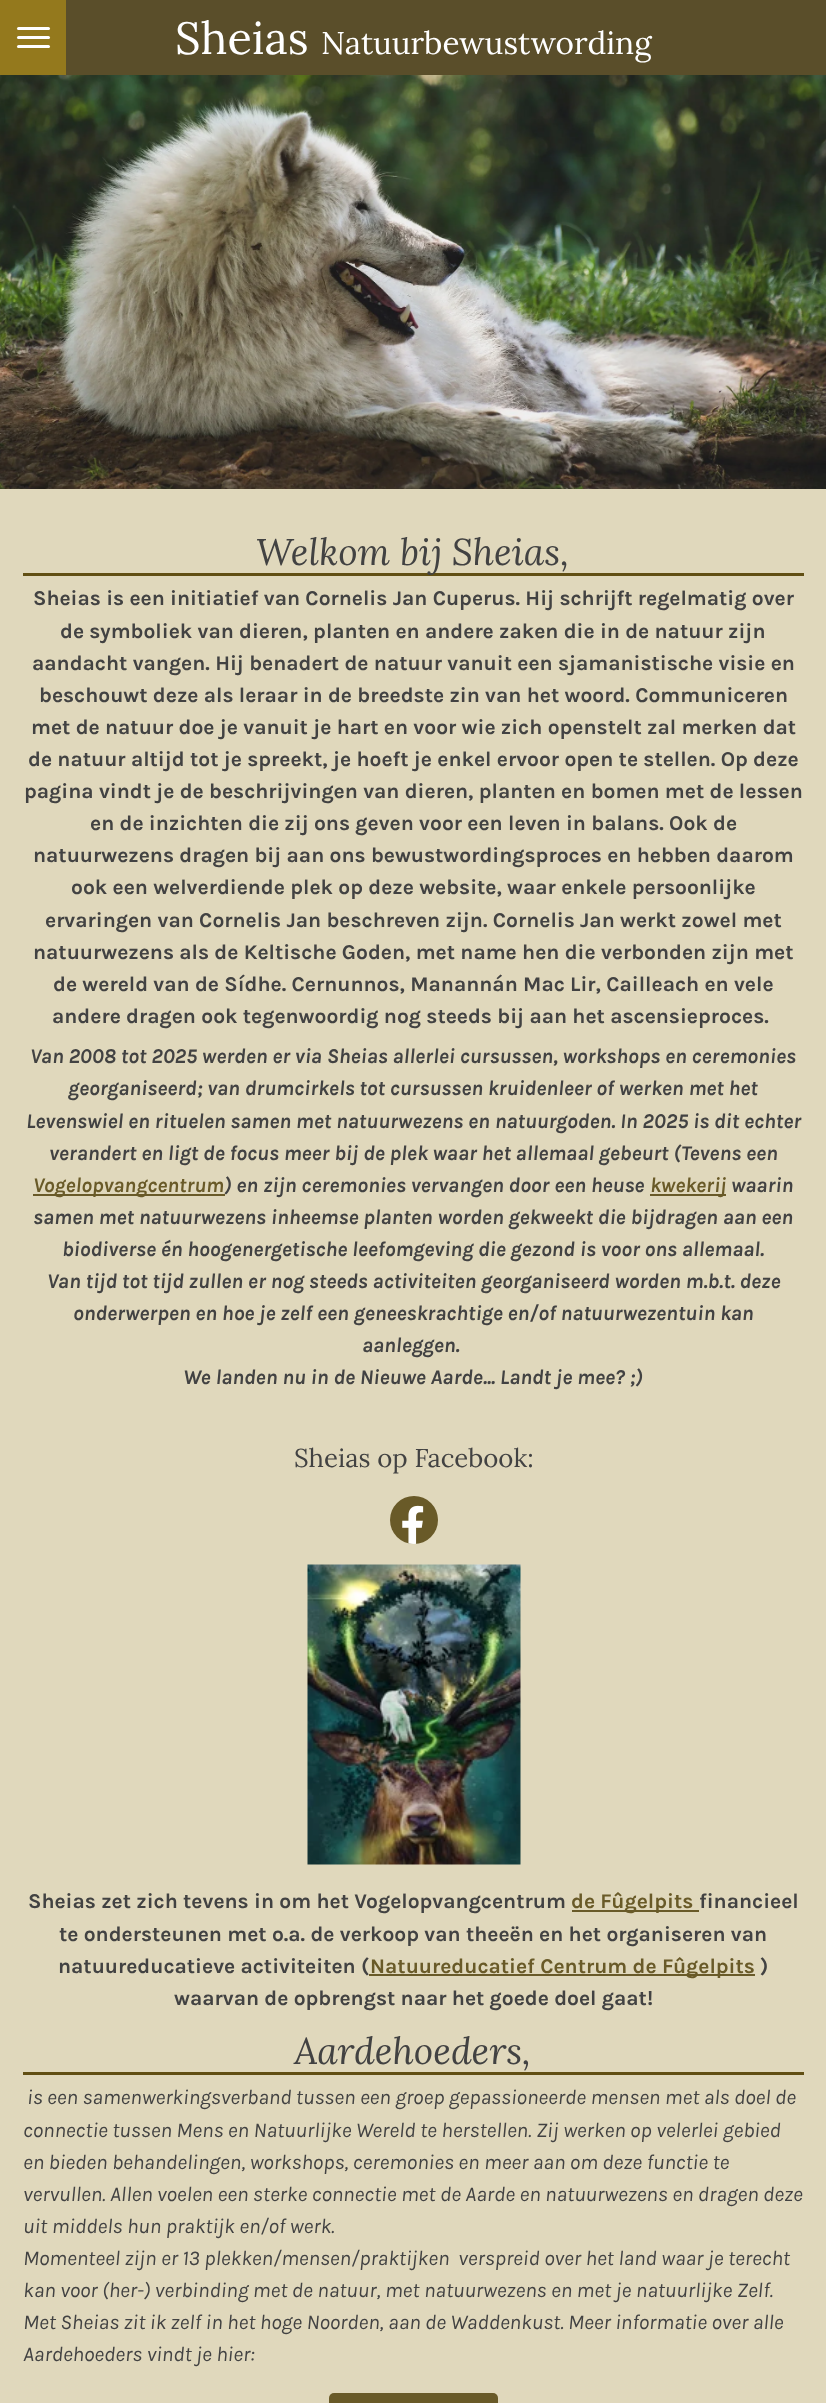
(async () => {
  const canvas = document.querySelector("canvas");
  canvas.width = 826;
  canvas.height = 2403;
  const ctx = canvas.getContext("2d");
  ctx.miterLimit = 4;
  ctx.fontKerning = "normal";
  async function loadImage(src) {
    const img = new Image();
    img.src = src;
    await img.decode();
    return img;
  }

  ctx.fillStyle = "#5a4e2a";
  ctx.fillRect(0, 0, 826, 2403);
  ctx.fillStyle = "#94791d";
  ctx.fillRect(0, 0, 66, 75);
  ctx.fillStyle = "#ffffff";
  ctx.beginPath();
  ctx.roundRect(17, 36, 33, 3, 1.5);
  ctx.fill();
  ctx.beginPath();
  ctx.roundRect(17, 27, 33, 3, 1.5);
  ctx.fill();
  ctx.beginPath();
  ctx.roundRect(17, 45, 33, 3, 1.5);
  ctx.fill();
  ctx.drawImage(await loadImage("img/1.png"), 0, 75, 826, 414);
  for (const [x, y, w, h, color] of [
    [0, 489, 826, 1914, "#e0d8bc"],
    [23, 573, 781, 3, "#614f13"],
    [33, 1194, 192, 2, "#695a28"],
    [650, 1194, 76, 2, "#695a28"],
  ]) {
    ctx.fillStyle = color;
    ctx.fillRect(x, y, w, h);
  }
  ctx.beginPath();
  ctx.arc(414, 1520, 24, 0, Math.PI * 2);
  ctx.fill();
  ctx.drawImage(await loadImage("img/2.png"), 402, 1505, 22, 39);
  ctx.drawImage(await loadImage("img/3.png"), 307, 1564, 214, 301);
  for (const [x, y, w, h, color] of [
    [572, 1910, 127, 2, "#695a28"],
    [369, 1974, 386, 2, "#695a28"],
    [23, 2072, 781, 3, "#614f13"],
  ]) {
    ctx.fillStyle = color;
    ctx.fillRect(x, y, w, h);
  }
  ctx.fillStyle = "#695a28";
  ctx.beginPath();
  ctx.roundRect(329, 2393, 169, 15, 5);
  ctx.fill();
  ctx.font = "45px Lora";
  ctx.fillStyle = "#ffffff";
  ctx.fillText("Sheias", 175, 54);
  ctx.font = "31.5px Lora";
  ctx.fillText("Natuurbewustwording", 321, 54);
  ctx.font = "italic 37.25px Lora";
  ctx.fillStyle = "#424242";
  ctx.fillText("Welkom bij Sheias,", 256, 565);
  ctx.font = "bold 21px Karla";
  for (const [text, x, y] of [
    ["Sheias is een initiatief van Cornelis Jan Cuperus. Hij schrijft regelmatig over", 33, 605],
    ["de symboliek van dieren, planten en andere zaken die in de natuur zijn", 60, 638],
    ["aandacht vangen. Hij benadert de natuur vanuit een sjamanistische visie en", 32, 670],
    ["beschouwt deze als leraar in de breedste zin van het woord. Communiceren", 39, 702],
    ["met de natuur doe je vanuit je hart en voor wie zich openstelt zal merken dat", 31, 734],
    ["de natuur altijd tot je spreekt, je hoeft je enkel ervoor open te stellen. Op deze", 28, 766],
    ["pagina vindt je de beschrijvingen van dieren, planten en bomen met de lessen", 24, 798],
    ["en de inzichten die zij ons geven voor een leven in balans. Ook de", 90, 830],
    ["natuurwezens dragen bij aan ons bewustwordingsproces en hebben daarom", 33, 862],
    ["ook een welverdiende plek op deze website, waar enkele persoonlijke", 71, 894],
    ["ervaringen van Cornelis Jan beschreven zijn. Cornelis Jan werkt zowel met", 45, 927],
    ["natuurwezens als de Keltische Goden, met name hen die verbonden zijn met", 33, 959],
    ["de wereld van de Sídhe. Cernunnos, Manannán Mac Lir, Cailleach en vele", 53, 991],
    ["andere dragen ook tegenwoordig nog steeds bij aan het ascensieproces.", 52, 1023],
  ]) {
    ctx.fillText(text, x, y);
  }
  ctx.font = "italic bold 21px Karla";
  for (const [text, x, y] of [
    ["Van 2008 tot 2025 werden er via Sheias allerlei cursussen, workshops en ceremonies", 30, 1063],
    ["georganiseerd; van drumcirkels tot cursussen kruidenleer of werken met het", 68, 1095],
    ["Levenswiel en rituelen samen met natuurwezens en natuurgoden. In 2025 is dit echter", 26, 1128],
    ["verandert en ligt de focus meer bij de plek waar het allemaal gebeurt (Tevens een", 49, 1160],
  ]) {
    ctx.fillText(text, x, y);
  }
  ctx.fillStyle = "#695a28";
  ctx.fillText("Vogelopvangcentrum", 33, 1192);
  ctx.fillStyle = "#424242";
  ctx.fillText(") en zijn ceremonies vervangen door een heuse", 224, 1192);
  ctx.fillStyle = "#695a28";
  ctx.fillText("kwekerij", 650, 1192);
  ctx.fillStyle = "#424242";
  for (const [text, x, y] of [
    ["waarin", 731, 1192],
    ["samen met natuurwezens inheemse planten worden gekweekt die bijdragen aan een", 33, 1224],
    ["biodiverse én hoogenergetische leefomgeving die gezond is voor ons allemaal.", 62, 1256],
    ["Van tijd tot tijd zullen er nog steeds activiteiten georganiseerd worden m.b.t. deze", 47, 1288],
    ["onderwerpen en hoe je zelf een geneeskrachtige en/of natuurwezentuin kan", 73, 1320],
    ["aanleggen.", 362, 1352],
    ["We landen nu in de Nieuwe Aarde... Landt je mee? ;)", 183, 1384],
  ]) {
    ctx.fillText(text, x, y);
  }
  ctx.font = "25.75px Lora";
  ctx.fillText("Sheias op Facebook:", 294, 1467);
  ctx.font = "bold 21px Karla";
  ctx.fillText("Sheias zet zich tevens in om het Vogelopvangcentrum", 28, 1908);
  ctx.fillStyle = "#695a28";
  ctx.fillText("de Fûgelpits", 571, 1908);
  ctx.fillStyle = "#424242";
  for (const [text, x, y] of [
    ["financieel", 699, 1908],
    ["te ondersteunen met o.a. de verkoop van theeën en het organiseren van", 59, 1941],
    ["natuureducatieve activiteiten (", 58, 1973],
  ]) {
    ctx.fillText(text, x, y);
  }
  ctx.fillStyle = "#695a28";
  ctx.fillText("Natuureducatief Centrum de Fûgelpits", 370, 1973);
  ctx.fillStyle = "#424242";
  ctx.fillText(")", 760, 1973);
  ctx.fillText("waarvan de opbrengst naar het goede doel gaat!", 174, 2005);
  ctx.font = "italic 37.25px Lora";
  ctx.fillText("Aardehoeders,", 294, 2064);
  ctx.font = "italic 21px Karla";
  for (const [text, x, y] of [
    ["is een samenwerkingsverband tussen een groep gepassioneerde mensen met als doel de", 27, 2104],
    ["connectie tussen Mens en Natuurlijke Wereld te herstellen. Zij werken op velerlei gebied", 23, 2137],
    ["en bieden behandelingen, workshops, ceremonies en meer aan om deze functie te", 23, 2169],
    ["vervullen. Allen voelen een sterke connectie met de Aarde en natuurwezens en dragen deze", 23, 2201],
    ["uit middels hun praktijk en/of werk.", 23, 2233],
    ["Momenteel zijn er 13 plekken/mensen/praktijken  verspreid over het land waar je terecht", 23, 2265],
    ["kan voor (her-) verbinding met de natuur, met natuurwezens en met je natuurlijke Zelf.", 23, 2297],
    ["Met Sheias zit ik zelf in het hoge Noorden, aan de Waddenkust. Meer informatie over alle", 23, 2329],
    ["Aardehoeders vindt je hier:", 23, 2361],
  ]) {
    ctx.fillText(text, x, y);
  }
})();
